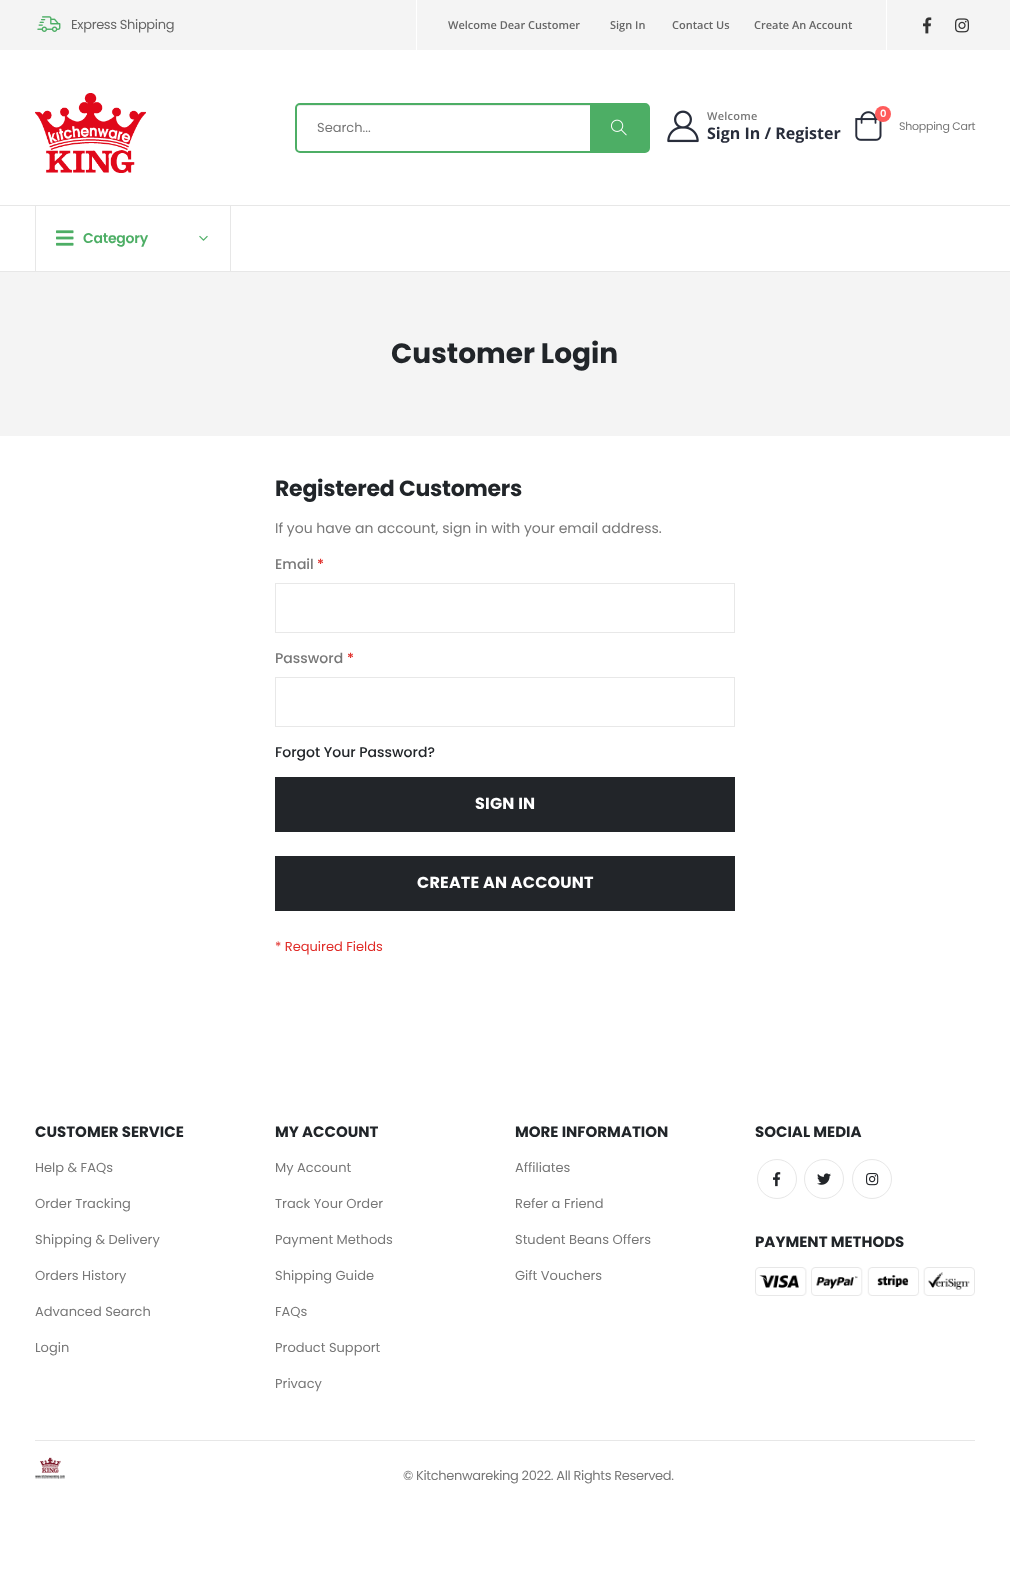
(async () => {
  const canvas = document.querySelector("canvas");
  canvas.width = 1010;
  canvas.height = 1569;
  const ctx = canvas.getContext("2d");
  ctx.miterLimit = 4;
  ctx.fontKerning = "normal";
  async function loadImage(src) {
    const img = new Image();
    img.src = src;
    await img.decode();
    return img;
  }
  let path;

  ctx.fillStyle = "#ffffff";
  ctx.fillRect(0, 0, 1010, 1569);
  ctx.fillStyle = "#f4f4f4";
  ctx.fillRect(0, 0, 1010, 50);
  ctx.drawImage(await loadImage("img/1.png"), 37, 16, 24, 16);
  ctx.fillStyle = "#ffffff";
  ctx.fillRect(416, 0, 1, 50);
  ctx.fillRect(886, 0, 1, 50);
  ctx.drawImage(await loadImage("img/2.png"), 923, 17, 9, 17);
  ctx.drawImage(await loadImage("img/3.png"), 955, 18, 14, 15);
  ctx.drawImage(await loadImage("img/4.png"), 35, 93, 111, 80);
  ctx.fillStyle = "#ebebeb";
  path = new Path2D("M300 106H645C647 106 648 107 648 109C648 107 647 105 645 105H300L298 106L297 109C297 107 298 106 300 106Z");
  ctx.fill(path);
  ctx.beginPath();
  ctx.roundRect(296, 104, 353, 48, 4);
  ctx.strokeStyle = "#4dae65";
  ctx.lineWidth = 2;
  ctx.stroke();
  ctx.fillStyle = "#4dae65";
  ctx.fillRect(590, 105, 58, 46);
  ctx.drawImage(await loadImage("img/5.png"), 611, 119, 16, 17);
  ctx.drawImage(await loadImage("img/6.png"), 667, 110, 32, 33);
  ctx.drawImage(await loadImage("img/7.png"), 855, 111, 27, 30);
  ctx.fillStyle = "#ff5b5b";
  ctx.beginPath();
  ctx.arc(883, 114, 8, 0, Math.PI * 2);
  ctx.fill();
  for (const [x, y, w, h, color] of [
    [0, 205, 1010, 1, "#e7e7e7"],
    [0, 271, 1010, 1, "#e7e7e7"],
    [230, 206, 1, 65, "#e7e7e7"],
    [35, 206, 1, 65, "#e7e7e7"],
  ]) {
    ctx.fillStyle = color;
    ctx.fillRect(x, y, w, h);
  }
  ctx.drawImage(await loadImage("img/8.png"), 56, 230, 18, 16);
  ctx.drawImage(await loadImage("img/9.png"), 199, 235, 9, 6);
  ctx.fillStyle = "#f4f4f4";
  ctx.fillRect(0, 272, 1010, 164);
  ctx.strokeStyle = "#e8e8e8";
  ctx.lineWidth = 1;
  ctx.strokeRect(275.5, 583.5, 459, 49);
  ctx.strokeRect(275.5, 677.5, 459, 49);
  ctx.fillStyle = "#222529";
  ctx.fillRect(275, 777, 460, 55);
  ctx.fillRect(275, 856, 460, 55);
  ctx.beginPath();
  ctx.arc(777, 1179, 19.5, 0, Math.PI * 2);
  ctx.strokeStyle = "#e7e7e7";
  ctx.stroke();
  ctx.drawImage(await loadImage("img/10.png"), 773, 1172, 8, 15);
  ctx.beginPath();
  ctx.arc(824, 1179, 19.5, 0, Math.PI * 2);
  ctx.stroke();
  ctx.drawImage(await loadImage("img/11.png"), 817, 1173, 14, 12);
  ctx.beginPath();
  ctx.arc(872, 1179, 19.5, 0, Math.PI * 2);
  ctx.stroke();
  ctx.drawImage(await loadImage("img/12.png"), 866, 1173, 13, 13);
  ctx.drawImage(await loadImage("img/13.png"), 755, 1267, 220, 29);
  ctx.fillStyle = "#e7e7e7";
  ctx.fillRect(35, 1440, 940, 1);
  ctx.drawImage(await loadImage("img/14.png"), 35, 1457, 30, 22);
  ctx.letterSpacing = "-0.35px";
  ctx.font = "13px Poppins";
  ctx.fillStyle = "#666666";
  ctx.fillText("Express Shipping", 71, 29);
  ctx.letterSpacing = "0px";
  ctx.font = "600 11px Open Sans";
  for (const [text, x, y] of [
    ["Welcome Dear Customer", 448, 29],
    ["Sign In", 610, 29],
    ["Contact Us", 672, 29],
    ["Create An Account", 754, 29],
  ]) {
    ctx.fillText(text, x, y);
  }
  ctx.font = "13px Poppins";
  ctx.fillStyle = "#777777";
  ctx.fillText("Search...", 317, 132);
  ctx.letterSpacing = "0.25px";
  ctx.font = "600 11px Open Sans";
  ctx.fillText("Welcome", 707, 120);
  ctx.letterSpacing = "0px";
  ctx.font = "bold 16px Open Sans";
  ctx.fillStyle = "#282d3b";
  ctx.fillText("Sign In / Register", 707, 139);
  ctx.font = "600 10px Poppins";
  ctx.fillStyle = "#ffffff";
  ctx.fillText("0", 880, 117);
  ctx.letterSpacing = "-0.25px";
  ctx.font = "11px Poppins";
  ctx.fillStyle = "#777777";
  ctx.fillText("Shopping Cart", 899, 130);
  ctx.font = "600 14px Poppins";
  ctx.fillStyle = "#4dae65";
  ctx.fillText("Category", 83, 243);
  ctx.letterSpacing = "0px";
  ctx.font = "bold 28px Poppins";
  ctx.fillStyle = "#212529";
  ctx.fillText("Customer Login", 391, 363);
  ctx.letterSpacing = "-0.25px";
  ctx.font = "bold 22px Poppins";
  ctx.fillText("Registered Customers", 275, 496);
  ctx.letterSpacing = "0px";
  ctx.font = "14px Poppins";
  ctx.fillStyle = "#777777";
  ctx.fillText("If you have an account, sign in with your email address.", 275, 533);
  ctx.font = "500 14px Poppins";
  ctx.fillText("Email", 275, 569);
  ctx.fillStyle = "#e02b27";
  ctx.fillText("*", 317, 569);
  ctx.fillStyle = "#777777";
  ctx.fillText("Password", 275, 663);
  ctx.fillStyle = "#e02b27";
  ctx.fillText("*", 347, 663);
  ctx.fillStyle = "#212529";
  ctx.fillText("Forgot Your Password?", 275, 757);
  ctx.letterSpacing = "0.2px";
  ctx.font = "bold 16px Poppins";
  ctx.fillStyle = "#ffffff";
  ctx.fillText("SIGN IN", 475, 809);
  ctx.fillText("CREATE AN ACCOUNT", 417, 888);
  ctx.letterSpacing = "0px";
  ctx.font = "13px Poppins";
  ctx.fillStyle = "#e02b27";
  ctx.fillText("* Required Fields", 275, 951);
  ctx.font = "bold 15px Poppins";
  ctx.fillStyle = "#212529";
  ctx.fillText("CUSTOMER SERVICE", 35, 1137);
  ctx.font = "13px Poppins";
  ctx.fillStyle = "#777777";
  for (const [text, x, y] of [
    ["Help & FAQs", 35, 1172],
    ["Order Tracking", 35, 1208],
    ["Shipping & Delivery", 35, 1244],
    ["Orders History", 35, 1280],
    ["Advanced Search", 35, 1316],
    ["Login", 35, 1352],
  ]) {
    ctx.fillText(text, x, y);
  }
  ctx.font = "bold 15px Poppins";
  ctx.fillStyle = "#212529";
  ctx.fillText("MY ACCOUNT", 275, 1137);
  ctx.font = "13px Poppins";
  ctx.fillStyle = "#777777";
  for (const [text, x, y] of [
    ["My Account", 275, 1172],
    ["Track Your Order", 275, 1208],
    ["Payment Methods", 275, 1244],
    ["Shipping Guide", 275, 1280],
    ["FAQs", 275, 1316],
    ["Product Support", 275, 1352],
    ["Privacy", 275, 1388],
  ]) {
    ctx.fillText(text, x, y);
  }
  ctx.font = "bold 15px Poppins";
  ctx.fillStyle = "#212529";
  ctx.fillText("MORE INFORMATION", 515, 1137);
  ctx.font = "13px Poppins";
  ctx.fillStyle = "#777777";
  for (const [text, x, y] of [
    ["Affiliates", 515, 1172],
    ["Refer a Friend", 515, 1208],
    ["Student Beans Offers", 515, 1244],
    ["Gift Vouchers", 515, 1280],
  ]) {
    ctx.fillText(text, x, y);
  }
  ctx.font = "bold 15px Poppins";
  ctx.fillStyle = "#212529";
  ctx.fillText("SOCIAL MEDIA", 755, 1137);
  ctx.fillText("PAYMENT METHODS", 755, 1247);
  ctx.letterSpacing = "-0.35px";
  ctx.font = "13px Poppins";
  ctx.fillStyle = "#777777";
  ctx.fillText("© Kitchenwareking 2022. All Rights Reserved.", 403, 1480);
})();
